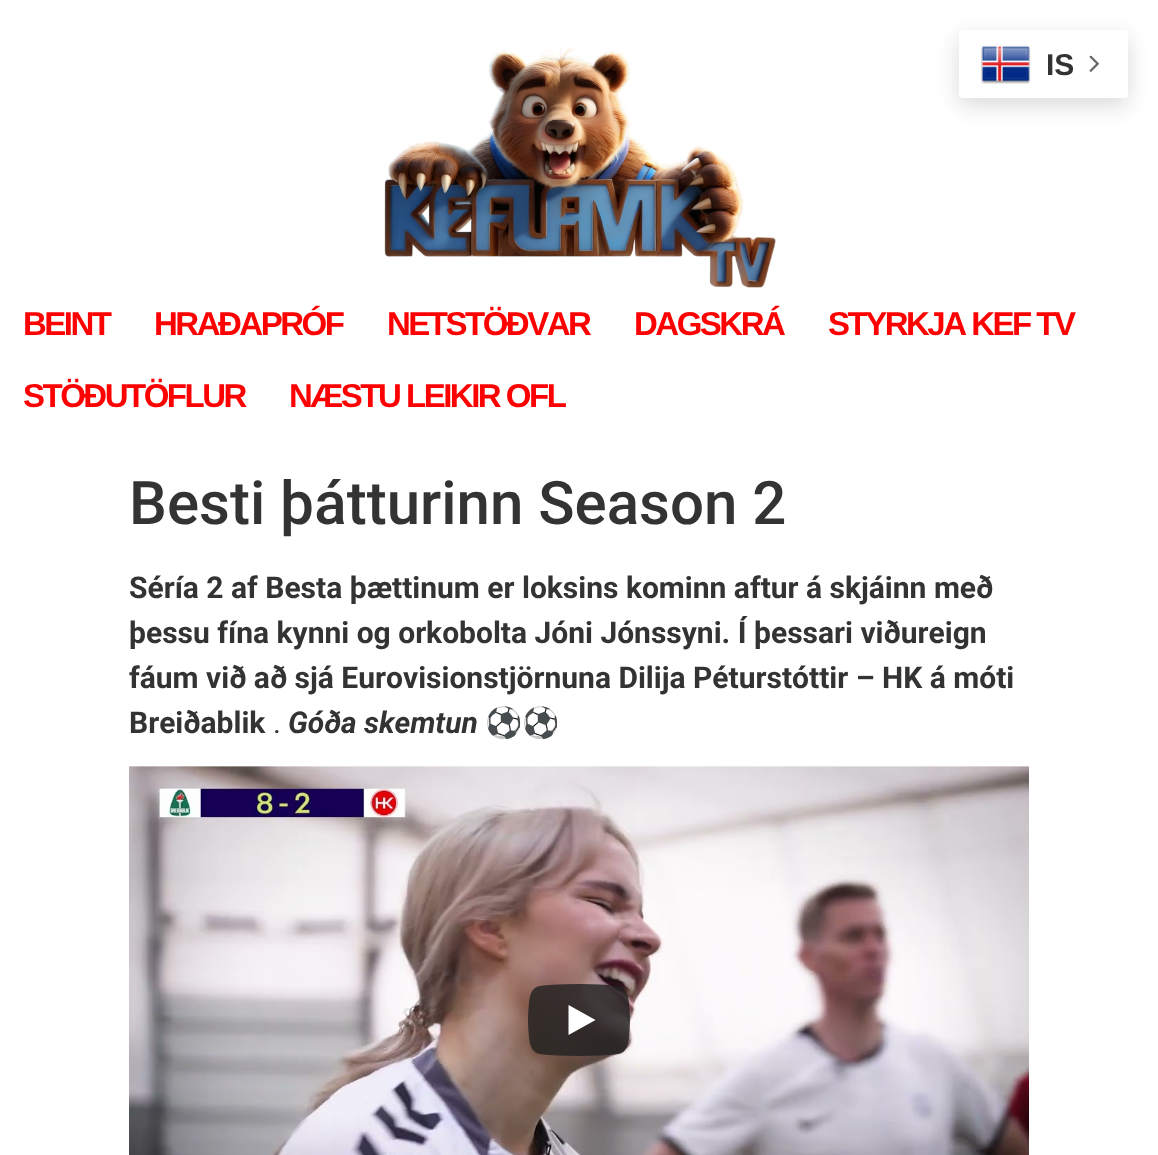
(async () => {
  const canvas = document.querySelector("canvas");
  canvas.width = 1158;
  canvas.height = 1155;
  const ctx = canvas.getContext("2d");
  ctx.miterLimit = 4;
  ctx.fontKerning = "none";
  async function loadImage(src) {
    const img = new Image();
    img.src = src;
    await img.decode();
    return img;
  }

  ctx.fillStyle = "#ffffff";
  ctx.fillRect(0, 0, 1158, 1155);
  ctx.fillStyle = "rgba(0, 0, 0, 0.15)";
  ctx.filter = "blur(11px)";
  ctx.beginPath();
  ctx.roundRect(959, 38, 169, 67, 3);
  ctx.fill();
  ctx.filter = "none";
  ctx.fillStyle = "#ffffff";
  ctx.beginPath();
  ctx.roundRect(959, 30, 169, 68, 3);
  ctx.fill();
  ctx.drawImage(await loadImage("img/1.png"), 981, 45, 50, 39);
  ctx.drawImage(await loadImage("img/2.png"), 1089, 55, 10, 17);
  ctx.drawImage(await loadImage("img/3.png"), 384, 47, 392, 241);
  ctx.drawImage(await loadImage("img/4.png"), 129, 766, 900, 389);
  ctx.drawImage(await loadImage("img/5.png"), 528, 984, 102, 72);
  ctx.font = "bold 30px Liberation Sans";
  ctx.fillStyle = "#333333";
  ctx.fillText("IS", 1046, 75);
  ctx.letterSpacing = "-2.5px";
  ctx.font = "bold 33px Liberation Sans";
  ctx.fillStyle = "#ff0000";
  for (const [text, x, y] of [
    ["BEINT", 23, 335],
    ["HRAÐAPRÓF", 154, 335],
    ["NETSTÖÐVAR", 387, 335],
    ["DAGSKRÁ", 634, 335],
    ["STYRKJA KEF TV", 828, 335],
    ["STÖÐUTÖFLUR", 23, 407],
    ["NÆSTU LEIKIR OFL", 289, 407],
  ]) {
    ctx.fillText(text, x, y);
  }
  ctx.letterSpacing = "0px";
  ctx.font = "500 60px Roboto";
  ctx.fillStyle = "#333333";
  ctx.fillText("Besti þátturinn Season 2", 129, 524);
  ctx.font = "bold 30px Roboto";
  for (const [text, x, y] of [
    ["Séría 2 af Besta þættinum er loksins kominn aftur á skjáinn með", 129, 598],
    ["þessu fína kynni og orkobolta Jóni Jónssyni. Í þessari viðureign", 129, 643],
    ["fáum við að sjá Eurovisionstjörnuna Dilija Péturstóttir – HK á móti", 129, 688],
    ["Breiðablik", 129, 733],
  ]) {
    ctx.fillText(text, x, y);
  }
  ctx.font = "30px Roboto";
  ctx.fillText(".", 273, 733);
  ctx.font = "italic bold 30px Roboto";
  ctx.fillText("Góða skemtun", 288, 733);
  ctx.font = "30px Noto Color Emoji";
  ctx.fillText("⚽⚽", 485, 733);
})();
